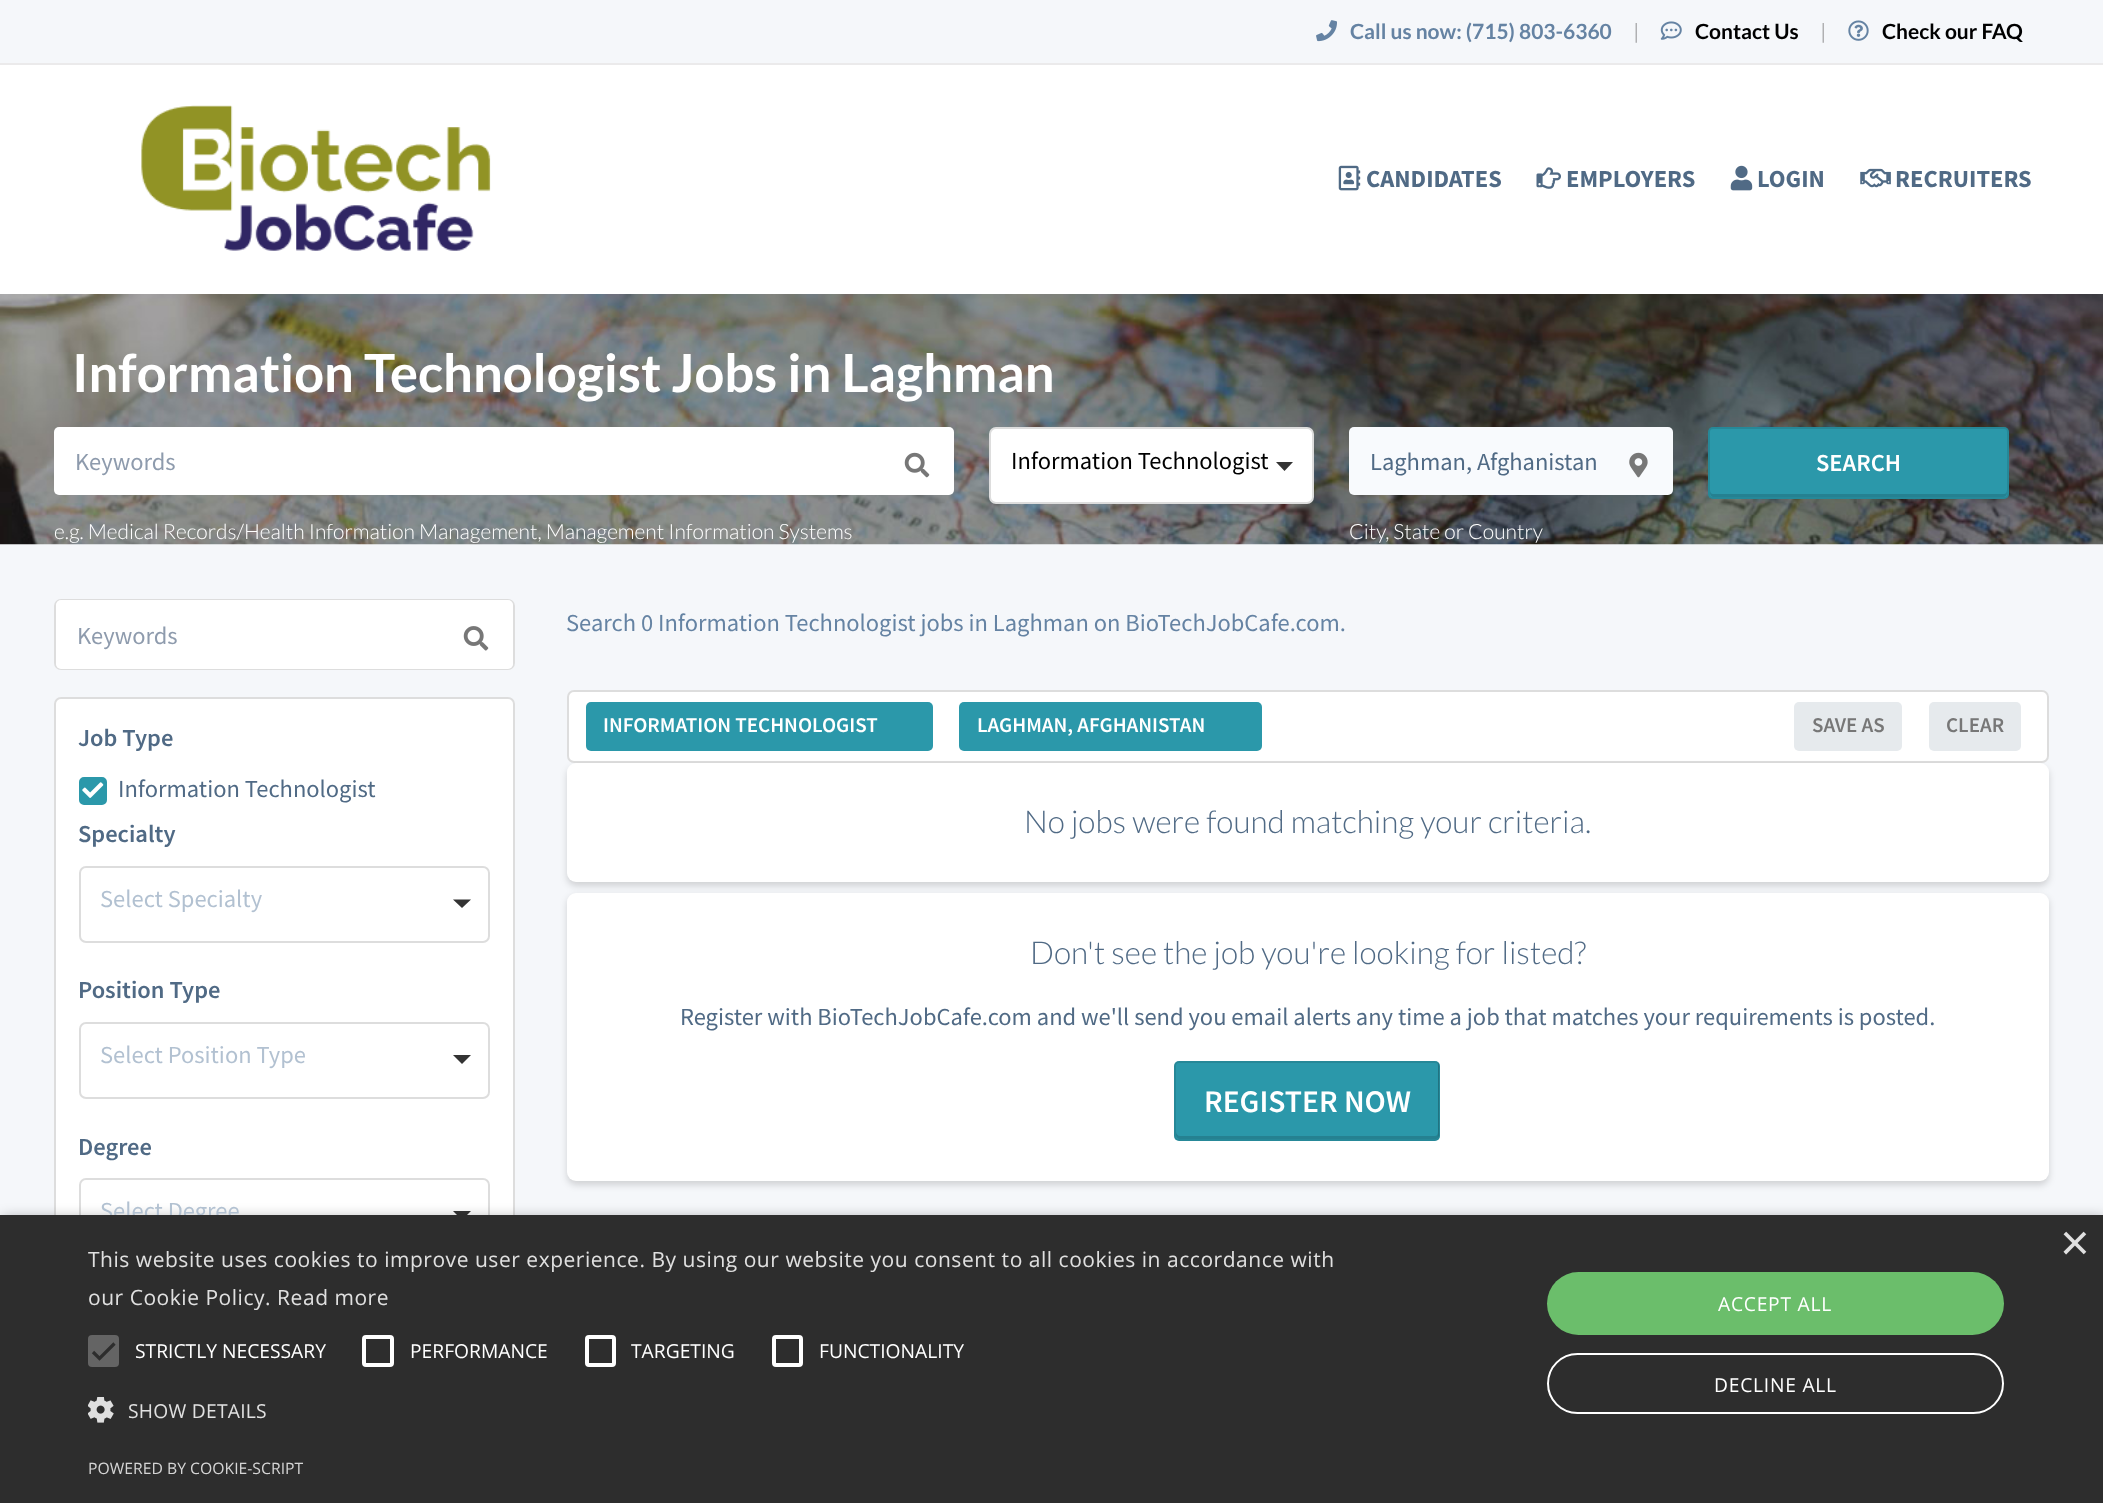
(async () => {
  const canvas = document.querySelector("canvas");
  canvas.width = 2103;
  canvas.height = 1503;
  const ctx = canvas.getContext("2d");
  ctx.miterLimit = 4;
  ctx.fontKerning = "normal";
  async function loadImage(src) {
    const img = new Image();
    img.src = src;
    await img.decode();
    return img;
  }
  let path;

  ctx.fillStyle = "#ffffff";
  ctx.fillRect(0, 0, 2103, 1503);
  ctx.fillStyle = "#f5f7fa";
  ctx.fillRect(0, 0, 2103, 63);
  ctx.fillStyle = "#ebeaeb";
  ctx.fillRect(0, 63, 2103, 2);
  ctx.drawImage(await loadImage("img/1.png"), 1316, 20, 21, 22);
  ctx.drawImage(await loadImage("img/2.png"), 1660, 21, 22, 19);
  ctx.drawImage(await loadImage("img/3.png"), 1848, 20, 21, 21);
  ctx.drawImage(await loadImage("img/4.png"), 141, 105, 350, 146);
  ctx.drawImage(await loadImage("img/5.png"), 1338, 165, 23, 26);
  ctx.drawImage(await loadImage("img/6.png"), 1536, 167, 25, 22);
  ctx.drawImage(await loadImage("img/7.png"), 1730, 165, 23, 26);
  ctx.drawImage(await loadImage("img/8.png"), 1860, 168, 31, 20);
  ctx.fillStyle = "#f5f7fa";
  ctx.fillRect(0, 544, 2103, 671);
  ctx.drawImage(await loadImage("img/9.png"), 0, 294, 2103, 251);
  ctx.fillStyle = "#ffffff";
  ctx.beginPath();
  ctx.roundRect(54, 427, 900, 68, 5);
  ctx.fill();
  ctx.drawImage(await loadImage("img/10.png"), 904, 452, 26, 26);
  ctx.beginPath();
  ctx.roundRect(990, 428, 323, 75, 6);
  ctx.fill();
  ctx.strokeStyle = "#dddddd";
  ctx.lineWidth = 2;
  ctx.stroke();
  ctx.fillStyle = "#333333";
  path = new Path2D("M1276 462H1293L1284.5 471Z");
  ctx.fill(path);
  ctx.fillStyle = "#f8fafd";
  ctx.beginPath();
  ctx.roundRect(1349, 427, 324, 68, 5);
  ctx.fill();
  ctx.drawImage(await loadImage("img/11.png"), 1629, 452, 19, 26);
  ctx.fillStyle = "#2b98aa";
  ctx.beginPath();
  ctx.roundRect(1708, 427, 301, 72, 5);
  ctx.fill();
  ctx.fillStyle = "#258191";
  path = new Path2D("M1710 490C1710 493 1710 496 1713 497H2003C2007 497 2007 493 2007 490C2007 492 2006 494 2004 494H1713C1711 494 1710 492 1710 490Z");
  ctx.fill(path);
  ctx.beginPath();
  ctx.roundRect(1709, 428, 299, 70, 4);
  ctx.strokeStyle = "rgba(0, 0, 0, 0.1)";
  ctx.stroke();
  ctx.beginPath();
  ctx.roundRect(55, 600, 459, 69, 6);
  ctx.strokeStyle = "#dddddd";
  ctx.stroke();
  ctx.fillStyle = "#ffffff";
  ctx.beginPath();
  ctx.roundRect(56, 600, 457, 69, 5);
  ctx.fill();
  ctx.drawImage(await loadImage("img/12.png"), 463, 626, 26, 25);
  ctx.beginPath();
  ctx.roundRect(55, 698, 459, 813, 6);
  ctx.fill();
  ctx.stroke();
  ctx.fillStyle = "#2b98aa";
  ctx.beginPath();
  ctx.roundRect(80, 778, 26, 26, 4);
  ctx.fill();
  ctx.strokeStyle = "#2b98aa";
  ctx.stroke();
  ctx.drawImage(await loadImage("img/13.png"), 82, 782, 22, 16);
  ctx.beginPath();
  ctx.roundRect(80, 867, 409, 75, 6);
  ctx.strokeStyle = "#dddddd";
  ctx.stroke();
  ctx.fillStyle = "#333333";
  path = new Path2D("M453 899.5H471L462 908Z");
  ctx.fill(path);
  ctx.beginPath();
  ctx.roundRect(80, 1023, 409, 75, 6);
  ctx.stroke();
  path = new Path2D("M453 1055H471L462 1064Z");
  ctx.fill(path);
  ctx.beginPath();
  ctx.roundRect(80, 1179, 409, 75, 6);
  ctx.stroke();
  path = new Path2D("M453 1211H471L462 1220Z");
  ctx.fill(path);
  ctx.fillStyle = "#ffffff";
  ctx.beginPath();
  ctx.roundRect(568, 691, 1480, 71, 6);
  ctx.fill();
  ctx.stroke();
  ctx.fillStyle = "#2b98aa";
  ctx.beginPath();
  ctx.roundRect(586, 702, 347, 49, 5);
  ctx.fill();
  ctx.beginPath();
  ctx.roundRect(959, 702, 303, 49, 5);
  ctx.fill();
  ctx.fillStyle = "#e6eaed";
  ctx.beginPath();
  ctx.roundRect(1794, 702, 108, 49, 5);
  ctx.fill();
  ctx.beginPath();
  ctx.roundRect(1929, 702, 92, 49, 5);
  ctx.fill();
  ctx.fillStyle = "rgba(0, 0, 0, 0.15)";
  ctx.filter = "blur(3.5px)";
  ctx.beginPath();
  ctx.roundRect(567, 767, 1482, 119, 9);
  ctx.fill();
  ctx.filter = "none";
  ctx.fillStyle = "#ffffff";
  ctx.beginPath();
  ctx.roundRect(567, 763, 1482, 119, 9);
  ctx.fill();
  ctx.fillStyle = "rgba(0, 0, 0, 0.15)";
  ctx.filter = "blur(3.5px)";
  ctx.beginPath();
  ctx.roundRect(567, 896, 1482, 289, 9);
  ctx.fill();
  ctx.filter = "none";
  ctx.fillStyle = "#ffffff";
  ctx.beginPath();
  ctx.roundRect(567, 893, 1482, 288, 9);
  ctx.fill();
  ctx.fillStyle = "#2b98aa";
  ctx.beginPath();
  ctx.roundRect(1174, 1061, 266, 80, 5);
  ctx.fill();
  ctx.fillStyle = "#258191";
  path = new Path2D("M1176 1132V1135C1176 1137 1178 1139 1180 1139H1435C1437 1139 1439 1137 1439 1135V1066C1439 1065 1439 1064 1438 1063V1132C1438 1134 1437 1136 1435 1136H1180C1178 1136 1176 1134 1176 1132Z");
  ctx.fill(path);
  ctx.beginPath();
  ctx.roundRect(1175, 1062, 264, 78, 4);
  ctx.strokeStyle = "rgba(0, 0, 0, 0.1)";
  ctx.stroke();
  ctx.fillStyle = "rgba(0, 0, 0, 0.35)";
  ctx.filter = "blur(7px)";
  ctx.beginPath();
  ctx.rect(2, 1218, 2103, 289);
  ctx.fill();
  ctx.filter = "none";
  ctx.font = "bold 21px Lato";
  ctx.fillStyle = "#6583a3";
  ctx.fillText("Call us now: (715) 803-6360", 1350, 39);
  ctx.font = "300 21px Lato";
  ctx.fillStyle = "#777777";
  ctx.fillText("|", 1633, 39);
  ctx.font = "bold 21px Lato";
  ctx.fillStyle = "#000000";
  ctx.fillText("Contact Us", 1695, 39);
  ctx.font = "300 21px Lato";
  ctx.fillStyle = "#777777";
  ctx.fillText("|", 1820, 39);
  ctx.font = "bold 21px Lato";
  ctx.fillStyle = "#000000";
  ctx.fillText("Check our FAQ", 1882, 39);
  ctx.font = "bold 24.5px Source Sans Pro";
  ctx.fillStyle = "#506a85";
  for (const [text, x, y] of [
    ["CANDIDATES", 1366, 187],
    ["EMPLOYERS", 1566, 187],
    ["LOGIN", 1757, 187],
    ["RECRUITERS", 1895, 187],
  ]) {
    ctx.fillText(text, x, y);
  }
  ctx.font = "bold 52.5px Lato";
  ctx.fillStyle = "#ffffff";
  ctx.fillText("Information Technologist Jobs in Laghman", 72, 392);
  ctx.font = "24.5px Source Sans Pro";
  ctx.fillStyle = "#8e9bad";
  ctx.fillText("Keywords", 75, 470);
  ctx.font = "300 21px Lato";
  ctx.fillStyle = "#ffffff";
  ctx.fillText("e.g. Medical Records/Health Information Management, Management Information Systems", 54, 539);
  ctx.font = "24.5px Source Sans Pro";
  ctx.fillStyle = "#000000";
  ctx.fillText("Information Technologist", 1011, 469);
  ctx.fillStyle = "#506a85";
  ctx.fillText("Laghman, Afghanistan", 1370, 470);
  ctx.font = "300 21px Lato";
  ctx.fillStyle = "#ffffff";
  ctx.fillText("City, State or Country", 1349, 539);
  ctx.font = "600 24.5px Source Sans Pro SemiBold";
  ctx.fillText("SEARCH", 1816, 471);
  ctx.font = "24.5px Source Sans Pro";
  ctx.fillStyle = "#8e9bad";
  ctx.fillText("Keywords", 77, 644);
  ctx.font = "600 24.5px Source Sans Pro SemiBold";
  ctx.fillStyle = "#506a85";
  ctx.fillText("Job Type", 78, 746);
  ctx.font = "24.5px Source Sans Pro";
  ctx.fillText("Information Technologist", 118, 797);
  ctx.font = "600 24.5px Source Sans Pro SemiBold";
  ctx.fillText("Specialty", 78, 842);
  ctx.font = "24.5px Source Sans Pro";
  ctx.fillStyle = "#b2c1d1";
  ctx.fillText("Select Specialty", 100, 907);
  ctx.font = "600 24.5px Source Sans Pro SemiBold";
  ctx.fillStyle = "#506a85";
  ctx.fillText("Position Type", 78, 998);
  ctx.font = "24.5px Source Sans Pro";
  ctx.fillStyle = "#b2c1d1";
  ctx.fillText("Select Position Type", 100, 1063);
  ctx.font = "600 24.5px Source Sans Pro SemiBold";
  ctx.fillStyle = "#506a85";
  ctx.fillText("Degree", 78, 1155);
  ctx.font = "24.5px Source Sans Pro";
  ctx.fillStyle = "#b2c1d1";
  ctx.fillText("Select Degree", 100, 1219);
  ctx.fillStyle = "#6583a3";
  ctx.fillText("Search 0 Information Technologist jobs in Laghman on BioTechJobCafe.com.", 566, 631);
  ctx.font = "600 21px Source Sans Pro SemiBold";
  ctx.fillStyle = "#ffffff";
  ctx.fillText("INFORMATION TECHNOLOGIST", 603, 732);
  ctx.fillText("LAGHMAN, AFGHANISTAN", 977, 732);
  ctx.fillStyle = "#777777";
  ctx.fillText("SAVE AS", 1812, 732);
  ctx.fillText("CLEAR", 1946, 732);
  ctx.font = "300 31.5px Lato";
  ctx.fillStyle = "#506a85";
  ctx.fillText("No jobs were found matching your criteria.", 1024, 833);
  ctx.fillText("Don't see the job you're looking for listed?", 1030, 964);
  ctx.font = "24.5px Source Sans Pro";
  ctx.fillText("Register with BioTechJobCafe.com and we'll send you email alerts any time a job that matches your requirements is posted.", 680, 1025);
  ctx.font = "600 31.5px Source Sans Pro SemiBold";
  ctx.fillStyle = "#ffffff";
  ctx.fillText("REGISTER NOW", 1204, 1112);
  ctx.fillStyle = "#2d2d2d";
  ctx.fillRect(0, 1215, 2103, 288);
  ctx.font = "51px Liberation Sans";
  ctx.fillStyle = "#e0e0e0";
  ctx.fillText("×", 2060, 1260);
  ctx.letterSpacing = "0.53px";
  ctx.font = "21px Open Sans";
  ctx.fillText("This website uses cookies to improve user experience. By using our website you consent to all cookies in accordance with", 88, 1267);
  ctx.fillText("our Cookie Policy. Read more", 88, 1305);
  ctx.fillStyle = "#646464";
  ctx.beginPath();
  ctx.roundRect(88, 1335, 31, 32, 4);
  ctx.fill();
  path = new Path2D("M93 1352L99.5 1358.5L114.5 1343.5");
  ctx.strokeStyle = "#2d2d2d";
  ctx.lineWidth = 3.2;
  ctx.stroke(path);
  ctx.letterSpacing = "0px";
  ctx.font = "19.25px Open Sans";
  ctx.fillStyle = "#ffffff";
  ctx.fillText("STRICTLY NECESSARY", 135, 1358);
  ctx.beginPath();
  ctx.roundRect(364, 1337, 28, 28, 2);
  ctx.strokeStyle = "#ffffff";
  ctx.lineWidth = 4;
  ctx.stroke();
  ctx.fillText("PERFORMANCE", 410, 1358);
  ctx.beginPath();
  ctx.roundRect(587, 1337, 27, 28, 2);
  ctx.stroke();
  ctx.fillText("TARGETING", 631, 1358);
  ctx.beginPath();
  ctx.roundRect(774, 1337, 27, 28, 2);
  ctx.stroke();
  ctx.fillText("FUNCTIONALITY", 819, 1358);
  ctx.drawImage(await loadImage("img/14.png"), 88, 1397, 26, 26);
  ctx.letterSpacing = "0.25px";
  ctx.fillStyle = "#e0e0e0";
  ctx.fillText("SHOW DETAILS", 128, 1418);
  ctx.fillStyle = "#6bbe6b";
  ctx.beginPath();
  ctx.roundRect(1547, 1272, 457, 63, 31.5);
  ctx.fill();
  ctx.letterSpacing = "0.75px";
  ctx.fillStyle = "#ffffff";
  ctx.fillText("ACCEPT ALL", 1718, 1311);
  ctx.beginPath();
  ctx.roundRect(1548, 1354, 455, 59, 29.5);
  ctx.lineWidth = 2;
  ctx.stroke();
  ctx.fillText("DECLINE ALL", 1714, 1392);
  ctx.letterSpacing = "0px";
  ctx.font = "15.75px Open Sans";
  ctx.fillStyle = "#d5d5d5";
  ctx.fillText("POWERED BY COOKIE-SCRIPT", 88, 1474);
})();
